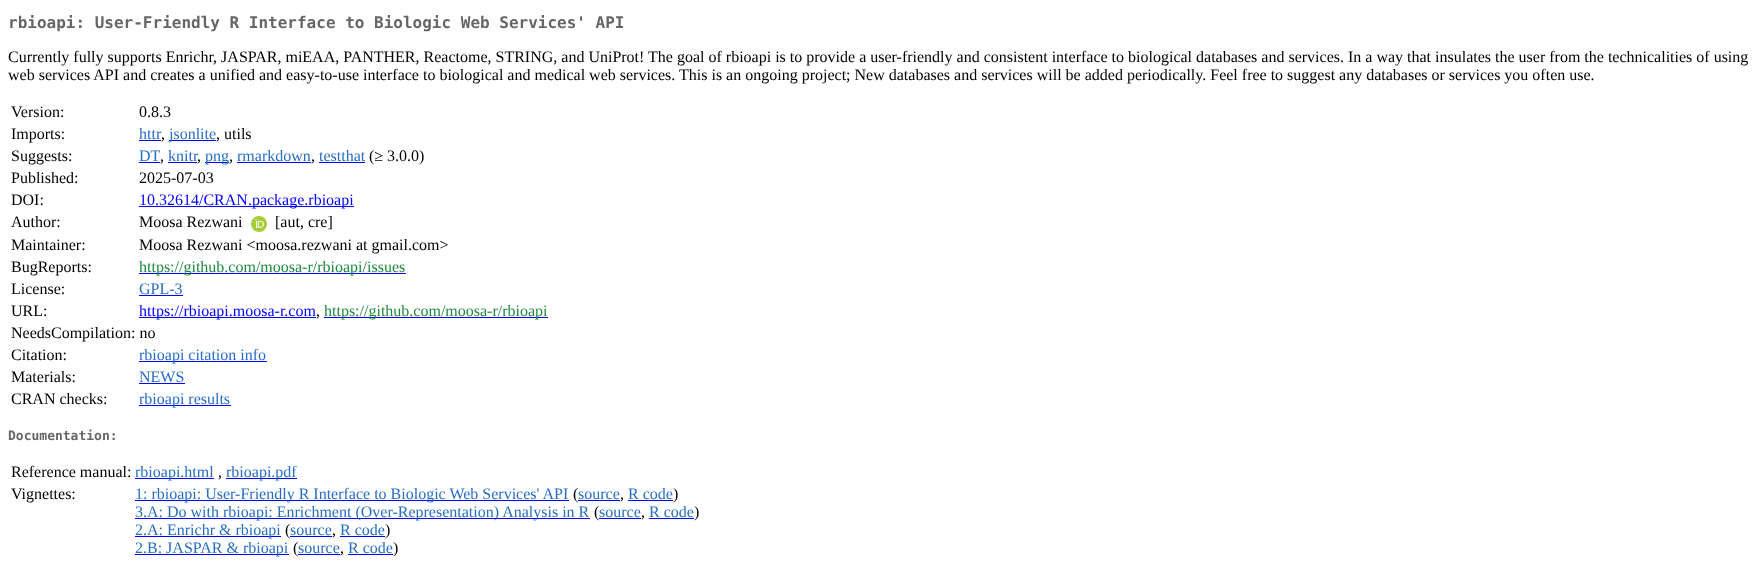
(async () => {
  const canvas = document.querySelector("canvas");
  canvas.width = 1760;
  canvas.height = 566;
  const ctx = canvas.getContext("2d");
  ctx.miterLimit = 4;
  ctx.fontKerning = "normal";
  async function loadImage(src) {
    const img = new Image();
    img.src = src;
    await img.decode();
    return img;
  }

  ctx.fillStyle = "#ffffff";
  ctx.fillRect(0, 0, 1760, 566);
  for (const [x, y, w, h, color] of [
    [139, 140, 22, 1, "#0000ff"],
    [169, 140, 47, 1, "#0000ff"],
    [139, 162, 21, 1, "#0000ff"],
    [168, 162, 29, 1, "#0000ff"],
    [205, 162, 24, 1, "#0000ff"],
    [237, 162, 74, 1, "#0000ff"],
    [319, 162, 46, 1, "#0000ff"],
    [139, 206, 215, 1, "#0000ff"],
  ]) {
    ctx.fillStyle = color;
    ctx.fillRect(x, y, w, h);
  }
  ctx.drawImage(await loadImage("img/1.png"), 251, 216, 16, 16);
  for (const [x, y, w, h, color] of [
    [139, 273, 267, 1, "#0000ff"],
    [139, 295, 44, 1, "#0000ff"],
    [139, 317, 177, 1, "#0000ff"],
    [324, 317, 224, 1, "#0000ff"],
    [139, 361, 128, 1, "#0000ff"],
    [139, 383, 46, 1, "#0000ff"],
    [139, 405, 92, 1, "#0000ff"],
    [135, 478, 79, 1, "#0000ff"],
    [226, 478, 71, 1, "#0000ff"],
    [135, 500, 434, 1, "#0000ff"],
    [578, 500, 42, 1, "#0000ff"],
    [628, 500, 45, 1, "#0000ff"],
    [135, 518, 455, 1, "#0000ff"],
    [599, 518, 42, 1, "#0000ff"],
    [649, 518, 45, 1, "#0000ff"],
    [135, 536, 146, 1, "#0000ff"],
    [290, 536, 42, 1, "#0000ff"],
    [340, 536, 45, 1, "#0000ff"],
    [135, 554, 154, 1, "#0000ff"],
    [298, 554, 42, 1, "#0000ff"],
    [348, 554, 45, 1, "#0000ff"],
  ]) {
    ctx.fillStyle = color;
    ctx.fillRect(x, y, w, h);
  }
  ctx.font = "bold 16px DejaVu Sans Mono";
  ctx.fillStyle = "#666666";
  ctx.fillText("rbioapi: User-Friendly R Interface to Biologic Web Services' API", 8, 28);
  ctx.font = "16px Liberation Serif";
  ctx.fillStyle = "#000000";
  for (const [text, x, y] of [
    ["Currently fully supports Enrichr, JASPAR, miEAA, PANTHER, Reactome, STRING, and UniProt! The goal of rbioapi is to provide a user-friendly and consistent interface to biological databases and services. In a way that insulates the user from the technicalities of using", 8, 62],
    ["web services API and creates a unified and easy-to-use interface to biological and medical web services. This is an ongoing project; New databases and services will be added periodically. Feel free to suggest any databases or services you often use.", 8, 80],
    ["Version:", 11, 117],
    ["0.8.3", 139, 117],
    ["Imports:", 11, 139],
  ]) {
    ctx.fillText(text, x, y);
  }
  ctx.fillStyle = "#276dc3";
  ctx.fillText("httr", 139, 139);
  ctx.fillStyle = "#000000";
  ctx.fillText(",", 161, 139);
  ctx.fillStyle = "#276dc3";
  ctx.fillText("jsonlite", 169, 139);
  ctx.fillStyle = "#000000";
  ctx.fillText(", utils", 216, 139);
  ctx.fillText("Suggests:", 11, 161);
  ctx.fillStyle = "#276dc3";
  ctx.fillText("DT", 139, 161);
  ctx.fillStyle = "#000000";
  ctx.fillText(",", 160, 161);
  ctx.fillStyle = "#276dc3";
  ctx.fillText("knitr", 168, 161);
  ctx.fillStyle = "#000000";
  ctx.fillText(",", 197, 161);
  ctx.fillStyle = "#276dc3";
  ctx.fillText("png", 205, 161);
  ctx.fillStyle = "#000000";
  ctx.fillText(",", 229, 161);
  ctx.fillStyle = "#276dc3";
  ctx.fillText("rmarkdown", 237, 161);
  ctx.fillStyle = "#000000";
  ctx.fillText(",", 311, 161);
  ctx.fillStyle = "#276dc3";
  ctx.fillText("testthat", 319, 161);
  ctx.fillStyle = "#000000";
  for (const [text, x, y] of [
    ["(≥ 3.0.0)", 369, 161],
    ["Published:", 11, 183],
    ["2025-07-03", 139, 183],
    ["DOI:", 11, 205],
  ]) {
    ctx.fillText(text, x, y);
  }
  ctx.fillStyle = "#0000ff";
  ctx.fillText("10.32614/CRAN.package.rbioapi", 139, 205);
  ctx.fillStyle = "#000000";
  for (const [text, x, y] of [
    ["Author:", 11, 227],
    ["Moosa Rezwani", 139, 227],
    ["[aut, cre]", 275, 227],
    ["Maintainer:", 11, 250],
    ["Moosa Rezwani <moosa.rezwani at gmail.com>", 139, 250],
    ["BugReports:", 11, 272],
  ]) {
    ctx.fillText(text, x, y);
  }
  ctx.fillStyle = "#1f883d";
  ctx.fillText("https://github.com/moosa-r/rbioapi/issues", 139, 272);
  ctx.fillStyle = "#000000";
  ctx.fillText("License:", 11, 294);
  ctx.fillStyle = "#276dc3";
  ctx.fillText("GPL-3", 139, 294);
  ctx.fillStyle = "#000000";
  ctx.fillText("URL:", 11, 316);
  ctx.fillStyle = "#0000ff";
  ctx.fillText("https://rbioapi.moosa-r.com", 139, 316);
  ctx.fillStyle = "#000000";
  ctx.fillText(",", 316, 316);
  ctx.fillStyle = "#1f883d";
  ctx.fillText("https://github.com/moosa-r/rbioapi", 324, 316);
  ctx.fillStyle = "#000000";
  ctx.fillText("NeedsCompilation: no", 11, 338);
  ctx.fillText("Citation:", 11, 360);
  ctx.fillStyle = "#276dc3";
  ctx.fillText("rbioapi citation info", 139, 360);
  ctx.fillStyle = "#000000";
  ctx.fillText("Materials:", 11, 382);
  ctx.fillStyle = "#276dc3";
  ctx.fillText("NEWS", 139, 382);
  ctx.fillStyle = "#000000";
  ctx.fillText("CRAN checks:", 11, 404);
  ctx.fillStyle = "#276dc3";
  ctx.fillText("rbioapi results", 139, 404);
  ctx.font = "bold 13px DejaVu Sans Mono";
  ctx.fillStyle = "#666666";
  ctx.fillText("Documentation:", 8, 440);
  ctx.font = "16px Liberation Serif";
  ctx.fillStyle = "#000000";
  ctx.fillText("Reference manual:", 11, 477);
  ctx.fillStyle = "#276dc3";
  ctx.fillText("rbioapi.html", 135, 477);
  ctx.fillStyle = "#000000";
  ctx.fillText(",", 218, 477);
  ctx.fillStyle = "#276dc3";
  ctx.fillText("rbioapi.pdf", 226, 477);
  ctx.fillStyle = "#000000";
  ctx.fillText("Vignettes:", 11, 499);
  ctx.fillStyle = "#276dc3";
  ctx.fillText("1: rbioapi: User-Friendly R Interface to Biologic Web Services' API", 135, 499);
  ctx.fillStyle = "#000000";
  ctx.fillText("(", 573, 499);
  ctx.fillStyle = "#276dc3";
  ctx.fillText("source", 578, 499);
  ctx.fillStyle = "#000000";
  ctx.fillText(",", 620, 499);
  ctx.fillStyle = "#276dc3";
  ctx.fillText("R code", 628, 499);
  ctx.fillStyle = "#000000";
  ctx.fillText(")", 673, 499);
  ctx.fillStyle = "#276dc3";
  ctx.fillText("3.A: Do with rbioapi: Enrichment (Over-Representation) Analysis in R", 135, 517);
  ctx.fillStyle = "#000000";
  ctx.fillText("(", 594, 517);
  ctx.fillStyle = "#276dc3";
  ctx.fillText("source", 599, 517);
  ctx.fillStyle = "#000000";
  ctx.fillText(",", 641, 517);
  ctx.fillStyle = "#276dc3";
  ctx.fillText("R code", 649, 517);
  ctx.fillStyle = "#000000";
  ctx.fillText(")", 694, 517);
  ctx.fillStyle = "#276dc3";
  ctx.fillText("2.A: Enrichr & rbioapi", 135, 535);
  ctx.fillStyle = "#000000";
  ctx.fillText("(", 285, 535);
  ctx.fillStyle = "#276dc3";
  ctx.fillText("source", 290, 535);
  ctx.fillStyle = "#000000";
  ctx.fillText(",", 332, 535);
  ctx.fillStyle = "#276dc3";
  ctx.fillText("R code", 340, 535);
  ctx.fillStyle = "#000000";
  ctx.fillText(")", 385, 535);
  ctx.fillStyle = "#276dc3";
  ctx.fillText("2.B: JASPAR & rbioapi", 135, 553);
  ctx.fillStyle = "#000000";
  ctx.fillText("(", 293, 553);
  ctx.fillStyle = "#276dc3";
  ctx.fillText("source", 298, 553);
  ctx.fillStyle = "#000000";
  ctx.fillText(",", 340, 553);
  ctx.fillStyle = "#276dc3";
  ctx.fillText("R code", 348, 553);
  ctx.fillStyle = "#000000";
  ctx.fillText(")", 393, 553);
})();
